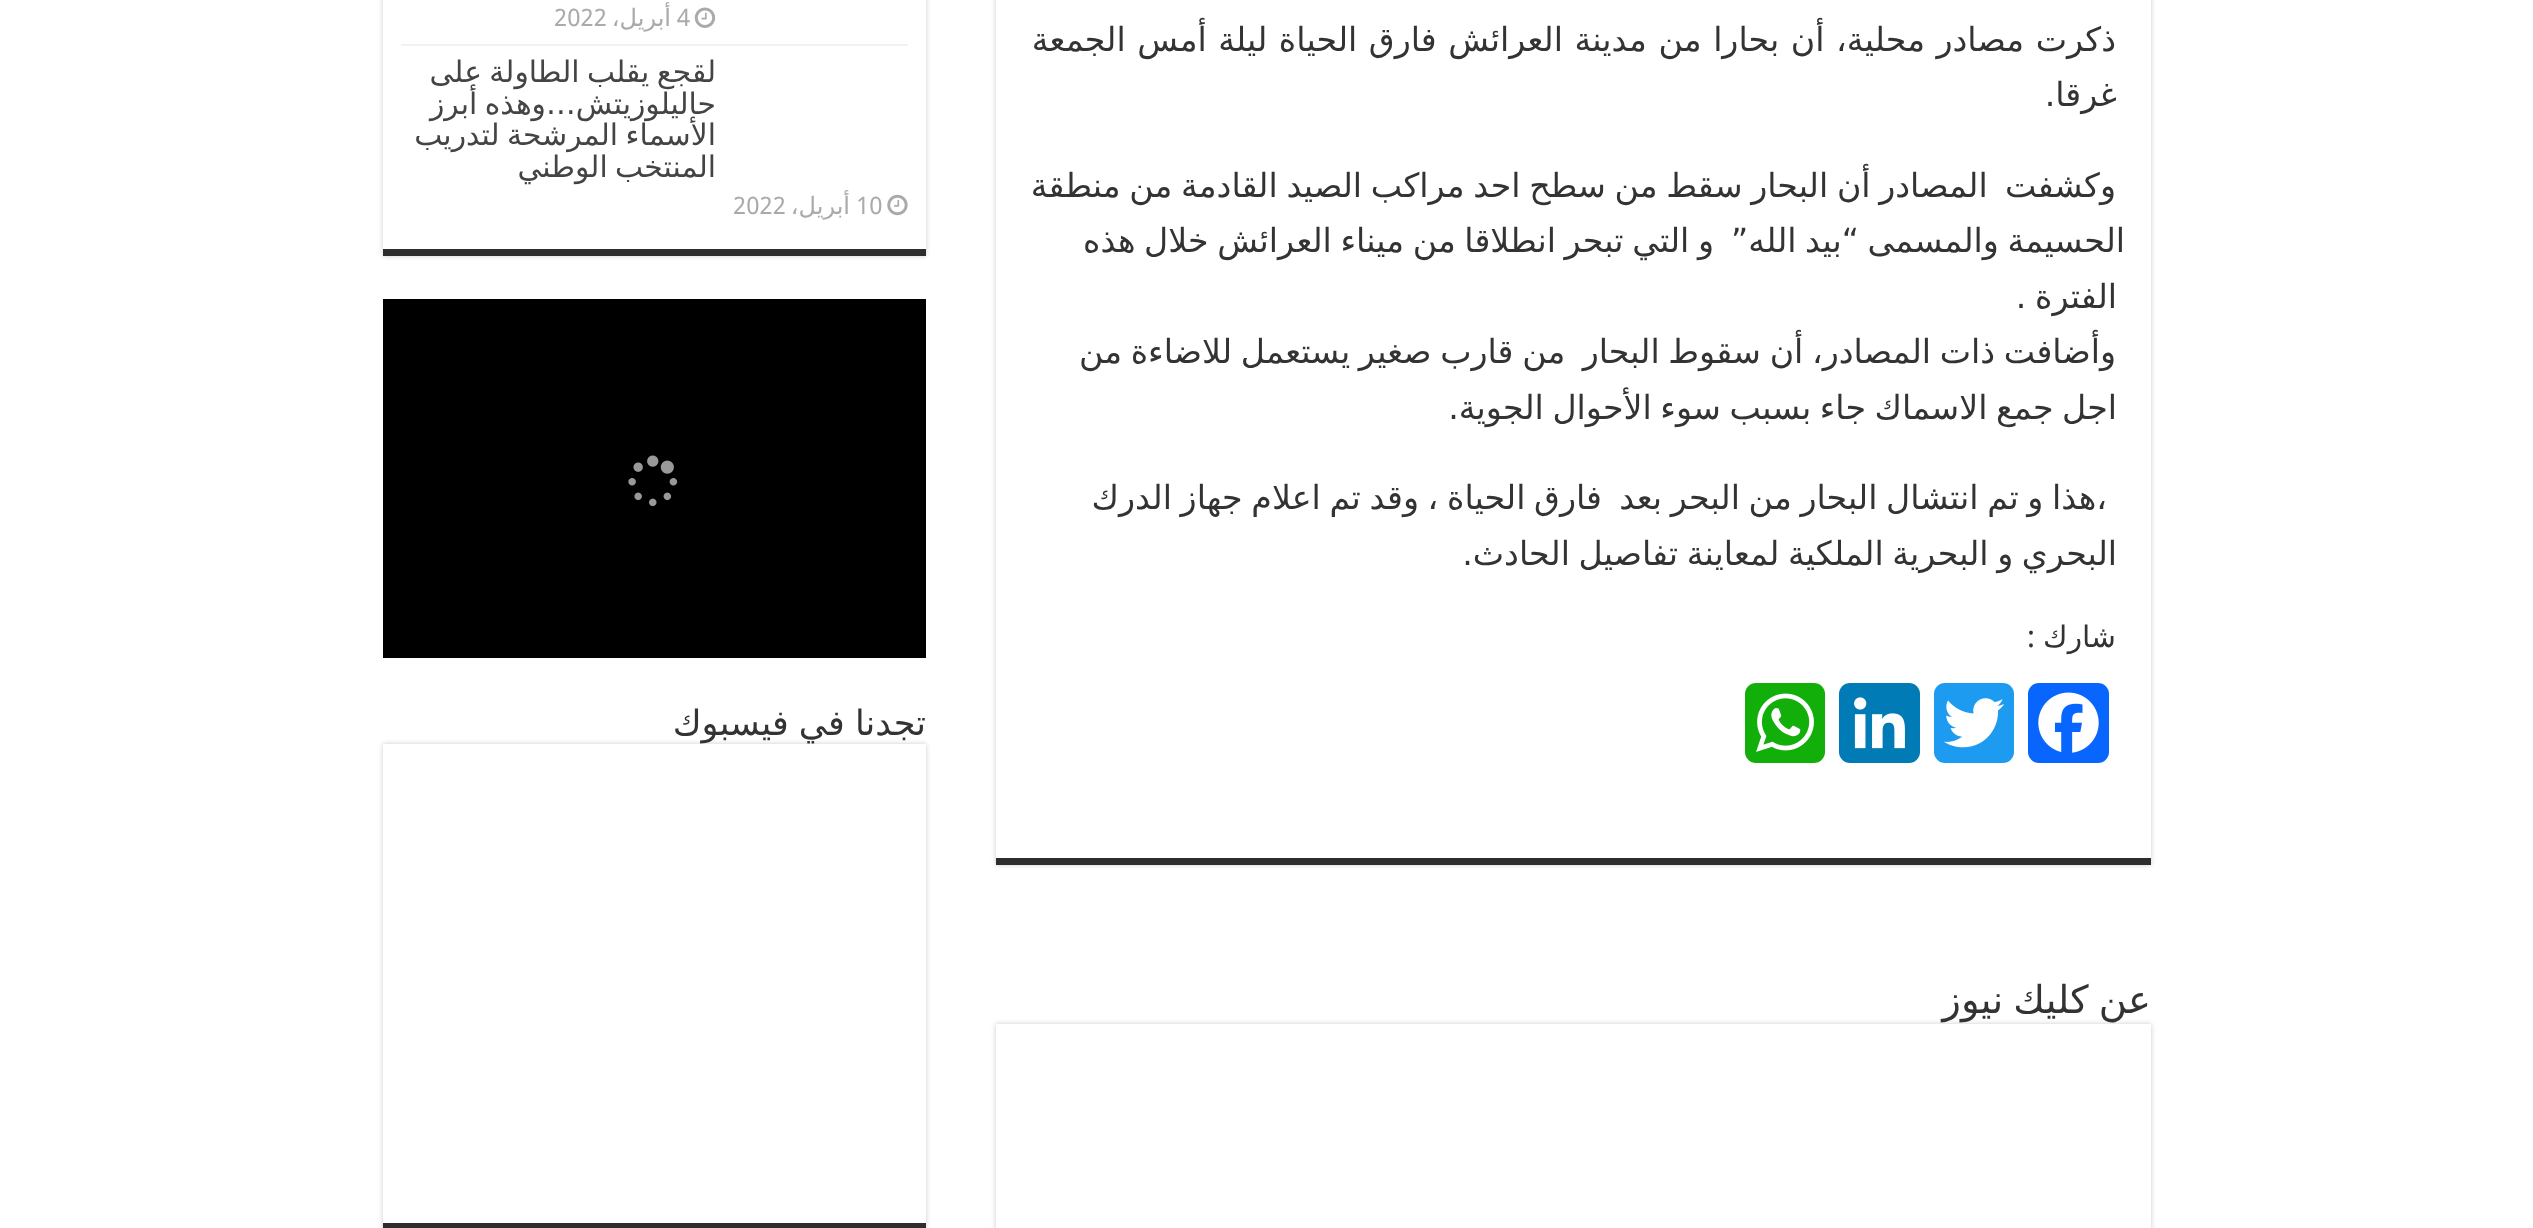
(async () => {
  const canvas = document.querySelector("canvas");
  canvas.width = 2533;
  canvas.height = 1228;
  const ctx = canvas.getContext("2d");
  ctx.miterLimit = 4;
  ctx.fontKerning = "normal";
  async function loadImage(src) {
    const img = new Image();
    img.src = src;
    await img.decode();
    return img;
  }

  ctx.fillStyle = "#ffffff";
  ctx.fillRect(0, 0, 2533, 1228);
  ctx.fillStyle = "#cacaca";
  ctx.filter = "blur(2.5px)";
  ctx.beginPath();
  ctx.rect(996, -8, 1155, 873);
  ctx.fill();
  ctx.filter = "none";
  ctx.fillStyle = "#ffffff";
  ctx.fillRect(996, 0, 1155, 858);
  ctx.fillStyle = "#2d2d2d";
  ctx.fillRect(996, 858, 1155, 7);
  ctx.fillStyle = "#0866ff";
  ctx.beginPath();
  ctx.roundRect(2028, 683, 81, 80, 11);
  ctx.fill();
  ctx.drawImage(await loadImage("img/1.png"), 2038, 692, 61, 61);
  ctx.fillStyle = "#1d9bf0";
  ctx.beginPath();
  ctx.roundRect(1934, 683, 80, 80, 11);
  ctx.fill();
  ctx.drawImage(await loadImage("img/2.png"), 1944, 698, 61, 50);
  ctx.fillStyle = "#007bb5";
  ctx.beginPath();
  ctx.roundRect(1839, 683, 81, 80, 11);
  ctx.fill();
  ctx.drawImage(await loadImage("img/3.png"), 1854, 697, 51, 52);
  ctx.fillStyle = "#12af0a";
  ctx.beginPath();
  ctx.roundRect(1745, 683, 80, 80, 11);
  ctx.fill();
  ctx.drawImage(await loadImage("img/4.png"), 1756, 693, 58, 59);
  ctx.fillStyle = "#cacaca";
  ctx.filter = "blur(2.5px)";
  ctx.beginPath();
  ctx.rect(996, 1024, 1155, 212);
  ctx.fill();
  ctx.filter = "none";
  ctx.fillStyle = "#ffffff";
  ctx.fillRect(996, 1024, 1155, 204);
  ctx.fillStyle = "#cacaca";
  ctx.filter = "blur(2.5px)";
  ctx.beginPath();
  ctx.rect(383, -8, 543, 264);
  ctx.fill();
  ctx.filter = "none";
  for (const [x, y, w, h, color] of [
    [383, 0, 543, 249, "#ffffff"],
    [383, 249, 543, 7, "#2d2d2d"],
    [401, 44, 507, 2, "#f2f2f2"],
  ]) {
    ctx.fillStyle = color;
    ctx.fillRect(x, y, w, h);
  }
  ctx.drawImage(await loadImage("img/5.png"), 694, 7, 22, 21);
  ctx.drawImage(await loadImage("img/6.png"), 887, 194, 21, 22);
  ctx.fillStyle = "#000000";
  ctx.fillRect(383, 299, 543, 359);
  ctx.drawImage(await loadImage("img/7.png"), 628, 455, 50, 52);
  ctx.fillStyle = "#cacaca";
  ctx.filter = "blur(2.5px)";
  ctx.beginPath();
  ctx.rect(383, 744, 543, 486);
  ctx.fill();
  ctx.filter = "none";
  ctx.fillStyle = "#ffffff";
  ctx.fillRect(383, 744, 543, 479);
  ctx.fillStyle = "#2d2d2d";
  ctx.fillRect(383, 1223, 543, 5);
  ctx.wordSpacing = "1px";
  ctx.direction = "rtl";
  ctx.font = "33.25px DejaVu Sans";
  ctx.fillStyle = "#333333";
  ctx.fillText("ذكرت مصادر محلية، أن بحارا من مدينة العرائش فارق الحياة ليلة أمس الجمعة", 2116, 51);
  ctx.wordSpacing = "0px";
  ctx.fillText("غرقا.", 2117, 106);
  ctx.wordSpacing = "-1.9px";
  ctx.fillText("وكشفت  المصادر أن البحار سقط من سطح احد مراكب الصيد القادمة من منطقة", 2116, 197);
  ctx.wordSpacing = "-2px";
  ctx.fillText("الحسيمة والمسمى “بيد الله”  و التي تبحر انطلاقا من ميناء العرائش خلال هذه", 2125, 252);
  ctx.fillText("الفترة .", 2117, 308);
  ctx.wordSpacing = "-1.9px";
  ctx.fillText("وأضافت ذات المصادر، أن سقوط البحار  من قارب صغير يستعمل للاضاءة من", 2116, 363);
  ctx.wordSpacing = "-2px";
  ctx.fillText("اجل جمع الاسماك جاء بسبب سوء الأحوال الجوية.", 2117, 419);
  ctx.wordSpacing = "-1.9px";
  ctx.fillText("،هذا و تم انتشال البحار من البحر بعد  فارق الحياة ، وقد تم اعلام جهاز الدرك", 2107, 509);
  ctx.wordSpacing = "-2px";
  ctx.fillText("البحري و البحرية الملكية لمعاينة تفاصيل الحادث.", 2117, 565);
  ctx.wordSpacing = "0px";
  ctx.font = "29.75px DejaVu Sans";
  ctx.fillText("شارك", 2116, 647);
  ctx.font = "29.75px Droid Sans";
  ctx.fillText(":", 2035, 647);
  ctx.wordSpacing = "-2px";
  ctx.font = "38.5px DejaVu Sans";
  ctx.fillText("عن كليك نيوز", 2151, 1013);
  ctx.wordSpacing = "0px";
  ctx.direction = "ltr";
  ctx.font = "24px Droid Sans";
  ctx.fillStyle = "#aaaaaa";
  ctx.fillText("4", 677, 26);
  ctx.direction = "rtl";
  ctx.font = "24px DejaVu Sans";
  ctx.fillText("أبريل،", 671, 26);
  ctx.direction = "ltr";
  ctx.font = "24px Droid Sans";
  ctx.fillText("2022", 554, 26);
  ctx.wordSpacing = "-2px";
  ctx.direction = "rtl";
  ctx.font = "29.75px DejaVu Sans";
  ctx.fillStyle = "#444444";
  for (const [text, x, y] of [
    ["لقجع يقلب الطاولة على", 716, 82],
    ["حاليلوزيتش…وهذه أبرز", 716, 114],
    ["الأسماء المرشحة لتدريب", 716, 145],
    ["المنتخب الوطني", 716, 177],
  ]) {
    ctx.fillText(text, x, y);
  }
  ctx.wordSpacing = "0px";
  ctx.direction = "ltr";
  ctx.font = "24px Droid Sans";
  ctx.fillStyle = "#aaaaaa";
  ctx.fillText("10", 856, 214);
  ctx.direction = "rtl";
  ctx.font = "24px DejaVu Sans";
  ctx.fillText("أبريل،", 850, 214);
  ctx.direction = "ltr";
  ctx.font = "24px Droid Sans";
  ctx.fillText("2022", 733, 214);
  ctx.wordSpacing = "-1px";
  ctx.direction = "rtl";
  ctx.font = "35px DejaVu Sans";
  ctx.fillStyle = "#333333";
  ctx.fillText("تجدنا في فيسبوك", 926, 735);
})();
